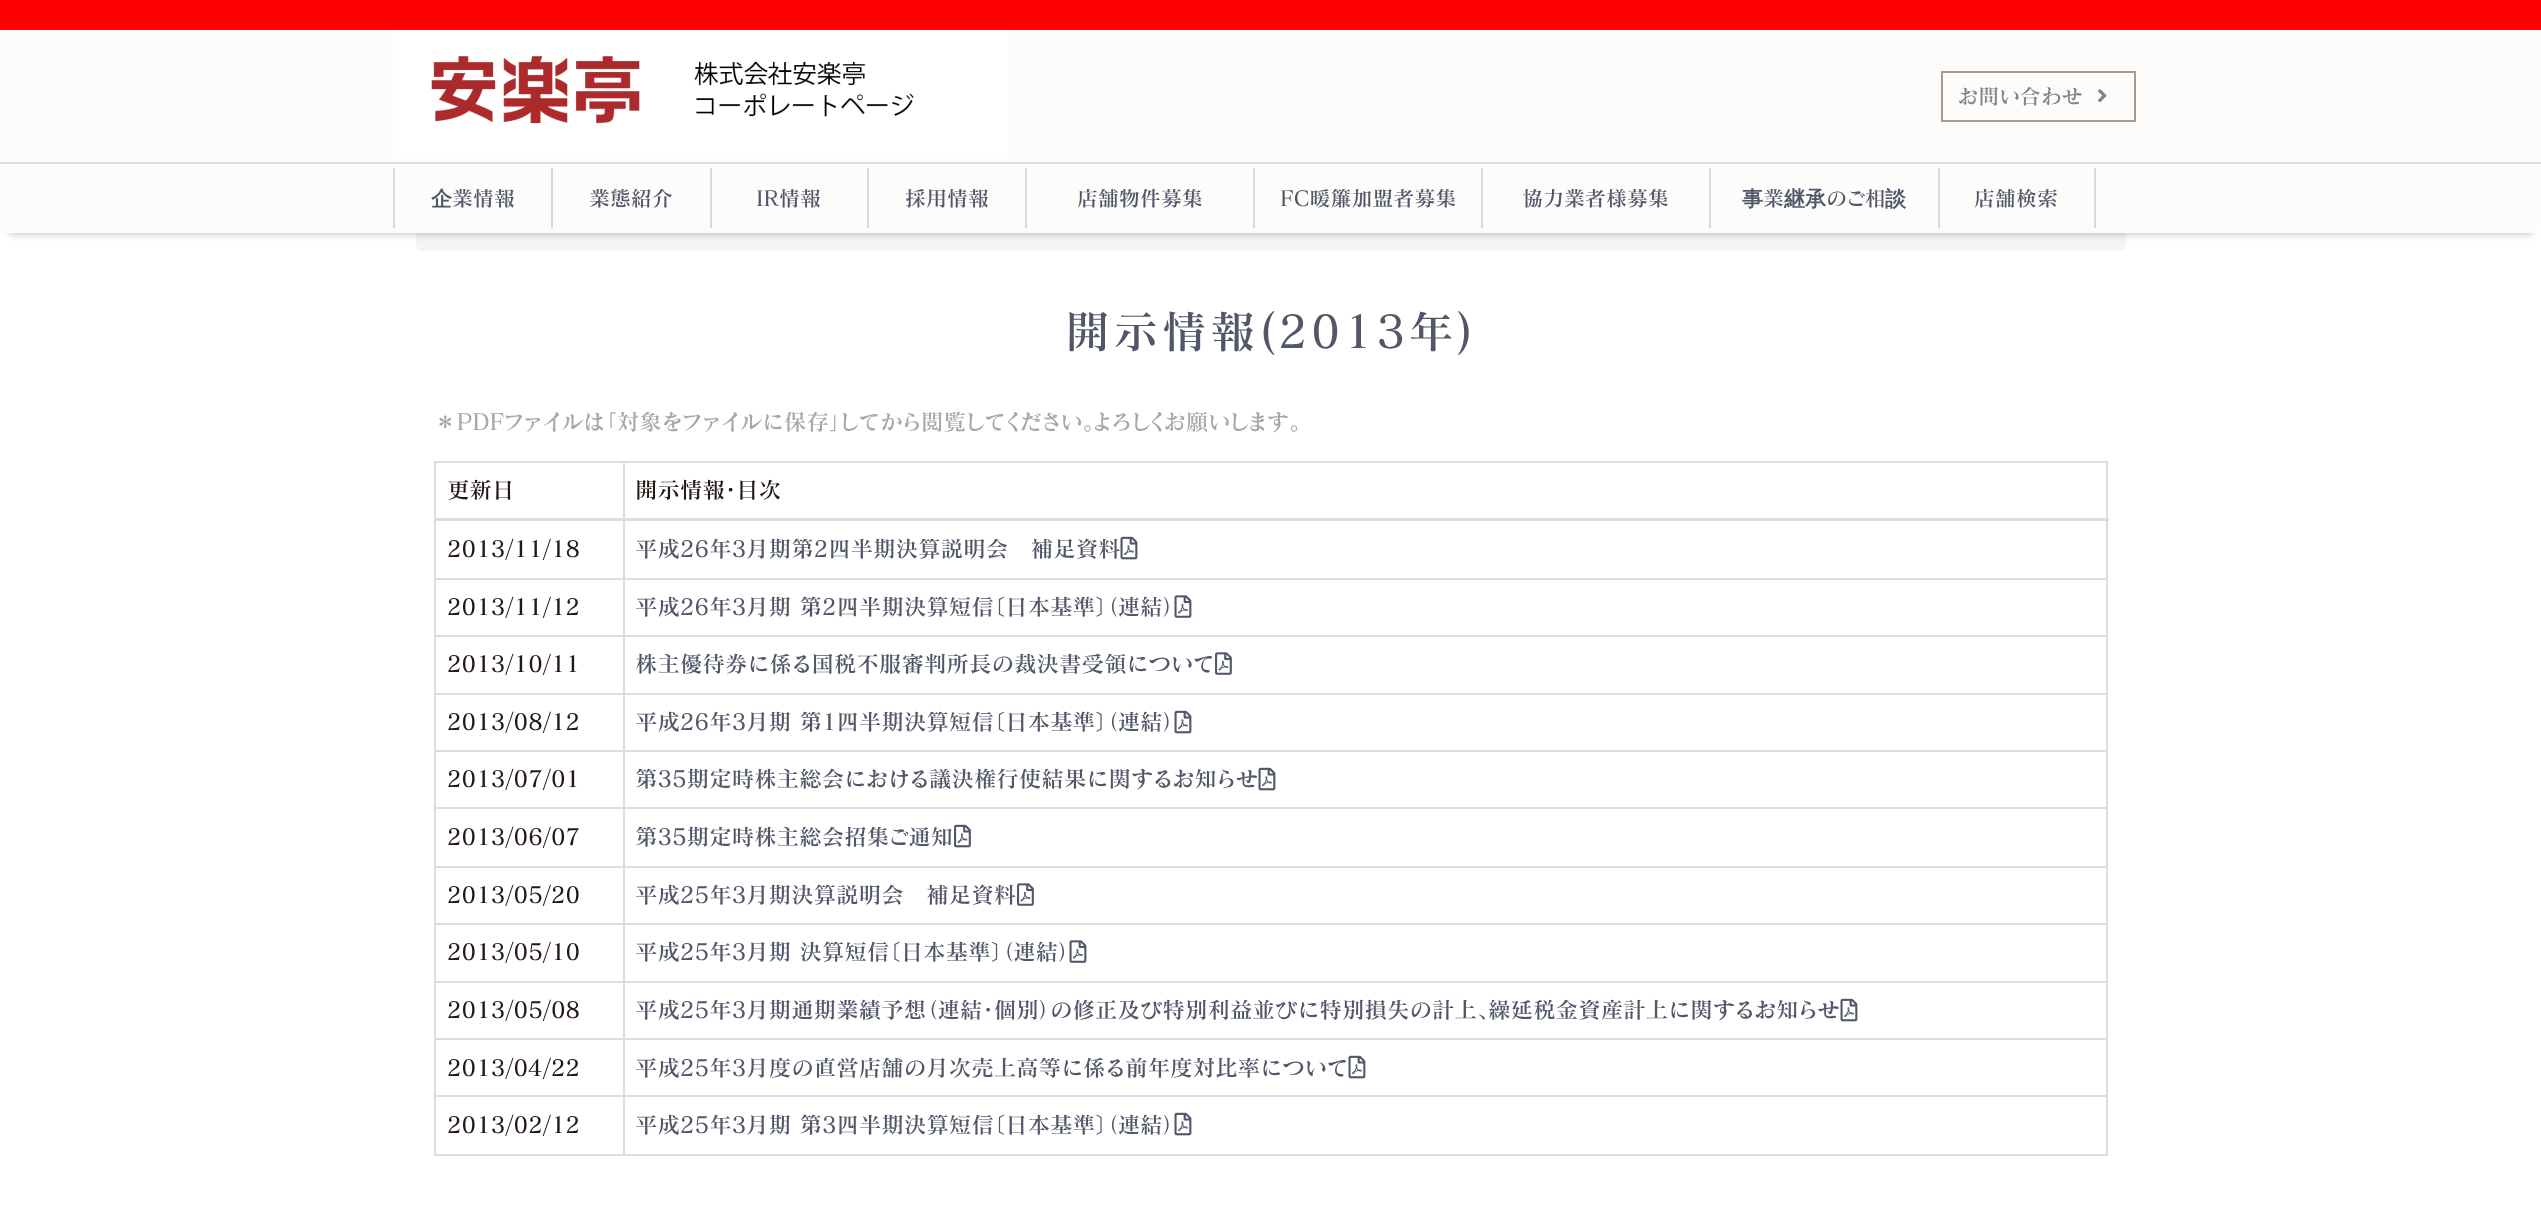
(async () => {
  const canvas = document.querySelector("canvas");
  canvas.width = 2541;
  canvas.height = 1224;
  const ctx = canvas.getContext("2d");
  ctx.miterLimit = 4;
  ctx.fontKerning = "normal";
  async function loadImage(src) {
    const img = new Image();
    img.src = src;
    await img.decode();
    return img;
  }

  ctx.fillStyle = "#ffffff";
  ctx.fillRect(0, 0, 2541, 1224);
  ctx.fillStyle = "#f5f5f5";
  ctx.beginPath();
  ctx.roundRect(416, 192, 1710, 59, 6);
  ctx.fill();
  ctx.fillStyle = "rgba(0, 0, 0, 0.3)";
  ctx.filter = "blur(4.5px)";
  ctx.beginPath();
  ctx.rect(9, 18, 2523, 215);
  ctx.fill();
  ctx.filter = "none";
  ctx.fillStyle = "#ffffff";
  ctx.fillRect(0, 227, 2541, 6);
  ctx.fillStyle = "#fdfcfa";
  ctx.beginPath();
  ctx.roundRect(0, 0, 2541, 233, 6);
  ctx.fill();
  ctx.fillStyle = "#ff0000";
  ctx.fillRect(0, 0, 2541, 30);
  ctx.fillStyle = "#dcdcdc";
  ctx.fillRect(0, 162, 2541, 2);
  ctx.drawImage(await loadImage("img/1.png"), 393, 30, 615, 129);
  ctx.strokeStyle = "#a69b94";
  ctx.lineWidth = 2;
  ctx.strokeRect(1942, 72, 193, 49);
  ctx.drawImage(await loadImage("img/2.png"), 2098, 89, 9, 14);
  for (const [x, y, w, h, color] of [
    [393, 168, 2, 60, "#d9d9d9"],
    [551, 168, 2, 60, "#d9d9d9"],
    [710, 168, 2, 60, "#d9d9d9"],
    [867, 168, 2, 60, "#d9d9d9"],
    [1025, 168, 2, 60, "#d9d9d9"],
    [1253, 168, 2, 60, "#d9d9d9"],
    [1481, 168, 2, 60, "#d9d9d9"],
    [1709, 168, 2, 60, "#d9d9d9"],
    [2094, 168, 2, 60, "#d9d9d9"],
    [1938, 168, 2, 60, "#d9d9d9"],
    [434, 461, 1674, 2, "#dddddd"],
    [2106, 461, 2, 694, "#dddddd"],
    [434, 1154, 1674, 2, "#dddddd"],
    [434, 461, 2, 694, "#dddddd"],
    [623, 578, 1485, 2, "#dddddd"],
    [623, 635, 1485, 2, "#dddddd"],
    [623, 693, 1485, 2, "#dddddd"],
    [623, 750, 1485, 2, "#dddddd"],
    [623, 807, 1485, 2, "#dddddd"],
    [623, 866, 1485, 2, "#dddddd"],
    [623, 923, 1485, 2, "#dddddd"],
    [623, 981, 1485, 2, "#dddddd"],
    [623, 1038, 1485, 2, "#dddddd"],
    [623, 1095, 1485, 2, "#dddddd"],
    [623, 1095, 2, 60, "#dddddd"],
    [434, 1095, 190, 2, "#dddddd"],
    [623, 1038, 2, 59, "#dddddd"],
    [434, 1038, 190, 2, "#dddddd"],
    [623, 981, 2, 59, "#dddddd"],
    [434, 981, 190, 2, "#dddddd"],
    [623, 923, 2, 60, "#dddddd"],
    [434, 923, 190, 2, "#dddddd"],
    [623, 866, 2, 58, "#dddddd"],
    [434, 866, 190, 2, "#dddddd"],
    [623, 807, 2, 60, "#dddddd"],
    [434, 807, 190, 2, "#dddddd"],
    [623, 750, 2, 59, "#dddddd"],
    [434, 750, 190, 2, "#dddddd"],
    [623, 693, 2, 59, "#dddddd"],
    [434, 693, 190, 2, "#dddddd"],
    [623, 635, 2, 60, "#dddddd"],
    [434, 635, 190, 2, "#dddddd"],
    [623, 578, 2, 58, "#dddddd"],
    [434, 578, 190, 2, "#dddddd"],
    [623, 461, 2, 118, "#dddddd"],
    [434, 518, 1675, 3, "#dddddd"],
  ]) {
    ctx.fillStyle = color;
    ctx.fillRect(x, y, w, h);
  }
  ctx.drawImage(await loadImage("img/4.png"), 1174, 595, 18, 23);
  ctx.drawImage(await loadImage("img/5.png"), 1215, 652, 17, 23);
  ctx.drawImage(await loadImage("img/6.png"), 1174, 710, 18, 24);
  ctx.drawImage(await loadImage("img/6.png"), 1258, 767, 18, 24);
  ctx.drawImage(await loadImage("img/7.png"), 954, 824, 17, 24);
  ctx.drawImage(await loadImage("img/5.png"), 1017, 883, 17, 23);
  ctx.drawImage(await loadImage("img/4.png"), 1069, 940, 18, 23);
  ctx.drawImage(await loadImage("img/6.png"), 1840, 998, 18, 24);
  ctx.drawImage(await loadImage("img/6.png"), 1348, 1055, 18, 24);
  ctx.drawImage(await loadImage("img/6.png"), 1174, 1112, 18, 24);
  ctx.font = "600 21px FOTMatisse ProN";
  ctx.fillStyle = "#81848f";
  ctx.fillText("お問い合わせ", 1958, 104);
  ctx.font = "bold 21px WenQuanYi Zen Hei";
  ctx.fillStyle = "#515769";
  ctx.fillText("企", 431, 206);
  ctx.font = "600 21px FOTMatisse ProN";
  for (const [text, x, y] of [
    ["業情報", 452, 206],
    ["業態紹介", 589, 206],
    ["IR情報", 756, 206],
    ["採用情報", 905, 206],
    ["店舗物件募集", 1077, 206],
    ["FC暖簾加盟者募集", 1280, 206],
    ["協力業者様募集", 1522, 206],
  ]) {
    ctx.fillText(text, x, y);
  }
  ctx.font = "bold 21px WenQuanYi Zen Hei";
  ctx.fillText("事", 1742, 206);
  ctx.font = "600 21px FOTMatisse ProN";
  ctx.fillText("業", 1763, 206);
  ctx.font = "bold 21px WenQuanYi Zen Hei";
  ctx.fillText("継承", 1784, 206);
  ctx.font = "600 21px FOTMatisse ProN";
  ctx.fillText("のご相", 1826, 206);
  ctx.font = "bold 21px WenQuanYi Zen Hei";
  ctx.fillText("談", 1885, 206);
  ctx.font = "600 21px FOTMatisse ProN";
  ctx.fillText("店舗検索", 1974, 206);
  ctx.letterSpacing = "3.4px";
  ctx.font = "600 45px FOTMatisse ProN";
  ctx.fillText("開示情報(2013年)", 1065, 348);
  ctx.letterSpacing = "0px";
  ctx.font = "600 22.5px FOTMatisse ProN";
  ctx.fillStyle = "#a6a7aa";
  ctx.fillText("＊PDFファイルは「対象をファイルに保存」してから閲覧してください。よろしくお願いします。", 434, 430);
  ctx.fillStyle = "#231815";
  for (const [text, x, y] of [
    ["更新日", 447, 498],
    ["開示情報・目次", 635, 498],
    ["2013/11/18", 447, 557],
  ]) {
    ctx.fillText(text, x, y);
  }
  ctx.fillStyle = "#515769";
  ctx.fillText("平成26年3月期第2四半期決算説明会　補足資料", 635, 557);
  ctx.drawImage(await loadImage("img/3.png"), 1120, 536, 18, 24);
  ctx.fillStyle = "#231815";
  ctx.fillText("2013/11/12", 447, 615);
  ctx.fillStyle = "#515769";
  ctx.fillText("平成26年3月期 第2四半期決算短信〔日本基準〕（連結）", 635, 615);
  ctx.fillStyle = "#231815";
  ctx.fillText("2013/10/11", 447, 672);
  ctx.fillStyle = "#515769";
  ctx.fillText("株主優待券に係る国税不服審判所長の裁決書受領について", 635, 672);
  ctx.fillStyle = "#231815";
  ctx.fillText("2013/08/12", 447, 730);
  ctx.fillStyle = "#515769";
  ctx.fillText("平成26年3月期 第1四半期決算短信〔日本基準〕（連結）", 635, 730);
  ctx.fillStyle = "#231815";
  ctx.fillText("2013/07/01", 447, 787);
  ctx.fillStyle = "#515769";
  ctx.fillText("第35期定時株主総会における議決権行使結果に関するお知らせ", 635, 787);
  ctx.fillStyle = "#231815";
  ctx.fillText("2013/06/07", 447, 845);
  ctx.fillStyle = "#515769";
  ctx.fillText("第35期定時株主総会招集ご通知", 635, 845);
  ctx.fillStyle = "#231815";
  ctx.fillText("2013/05/20", 447, 903);
  ctx.fillStyle = "#515769";
  ctx.fillText("平成25年3月期決算説明会　補足資料", 635, 903);
  ctx.fillStyle = "#231815";
  ctx.fillText("2013/05/10", 447, 960);
  ctx.fillStyle = "#515769";
  ctx.fillText("平成25年3月期 決算短信〔日本基準〕（連結）", 635, 960);
  ctx.fillStyle = "#231815";
  ctx.fillText("2013/05/08", 447, 1018);
  ctx.fillStyle = "#515769";
  ctx.fillText("平成25年3月期通期業績予想（連結・個別）の修正及び特別利益並びに特別損失の計上、繰延税金資産計上に関するお知らせ", 635, 1018);
  ctx.fillStyle = "#231815";
  ctx.fillText("2013/04/22", 447, 1076);
  ctx.fillStyle = "#515769";
  ctx.fillText("平成25年3月度の直営店舗の月次売上高等に係る前年度対比率について", 635, 1076);
  ctx.fillStyle = "#231815";
  ctx.fillText("2013/02/12", 447, 1133);
  ctx.fillStyle = "#515769";
  ctx.fillText("平成25年3月期 第3四半期決算短信〔日本基準〕（連結）", 635, 1133);
})();
